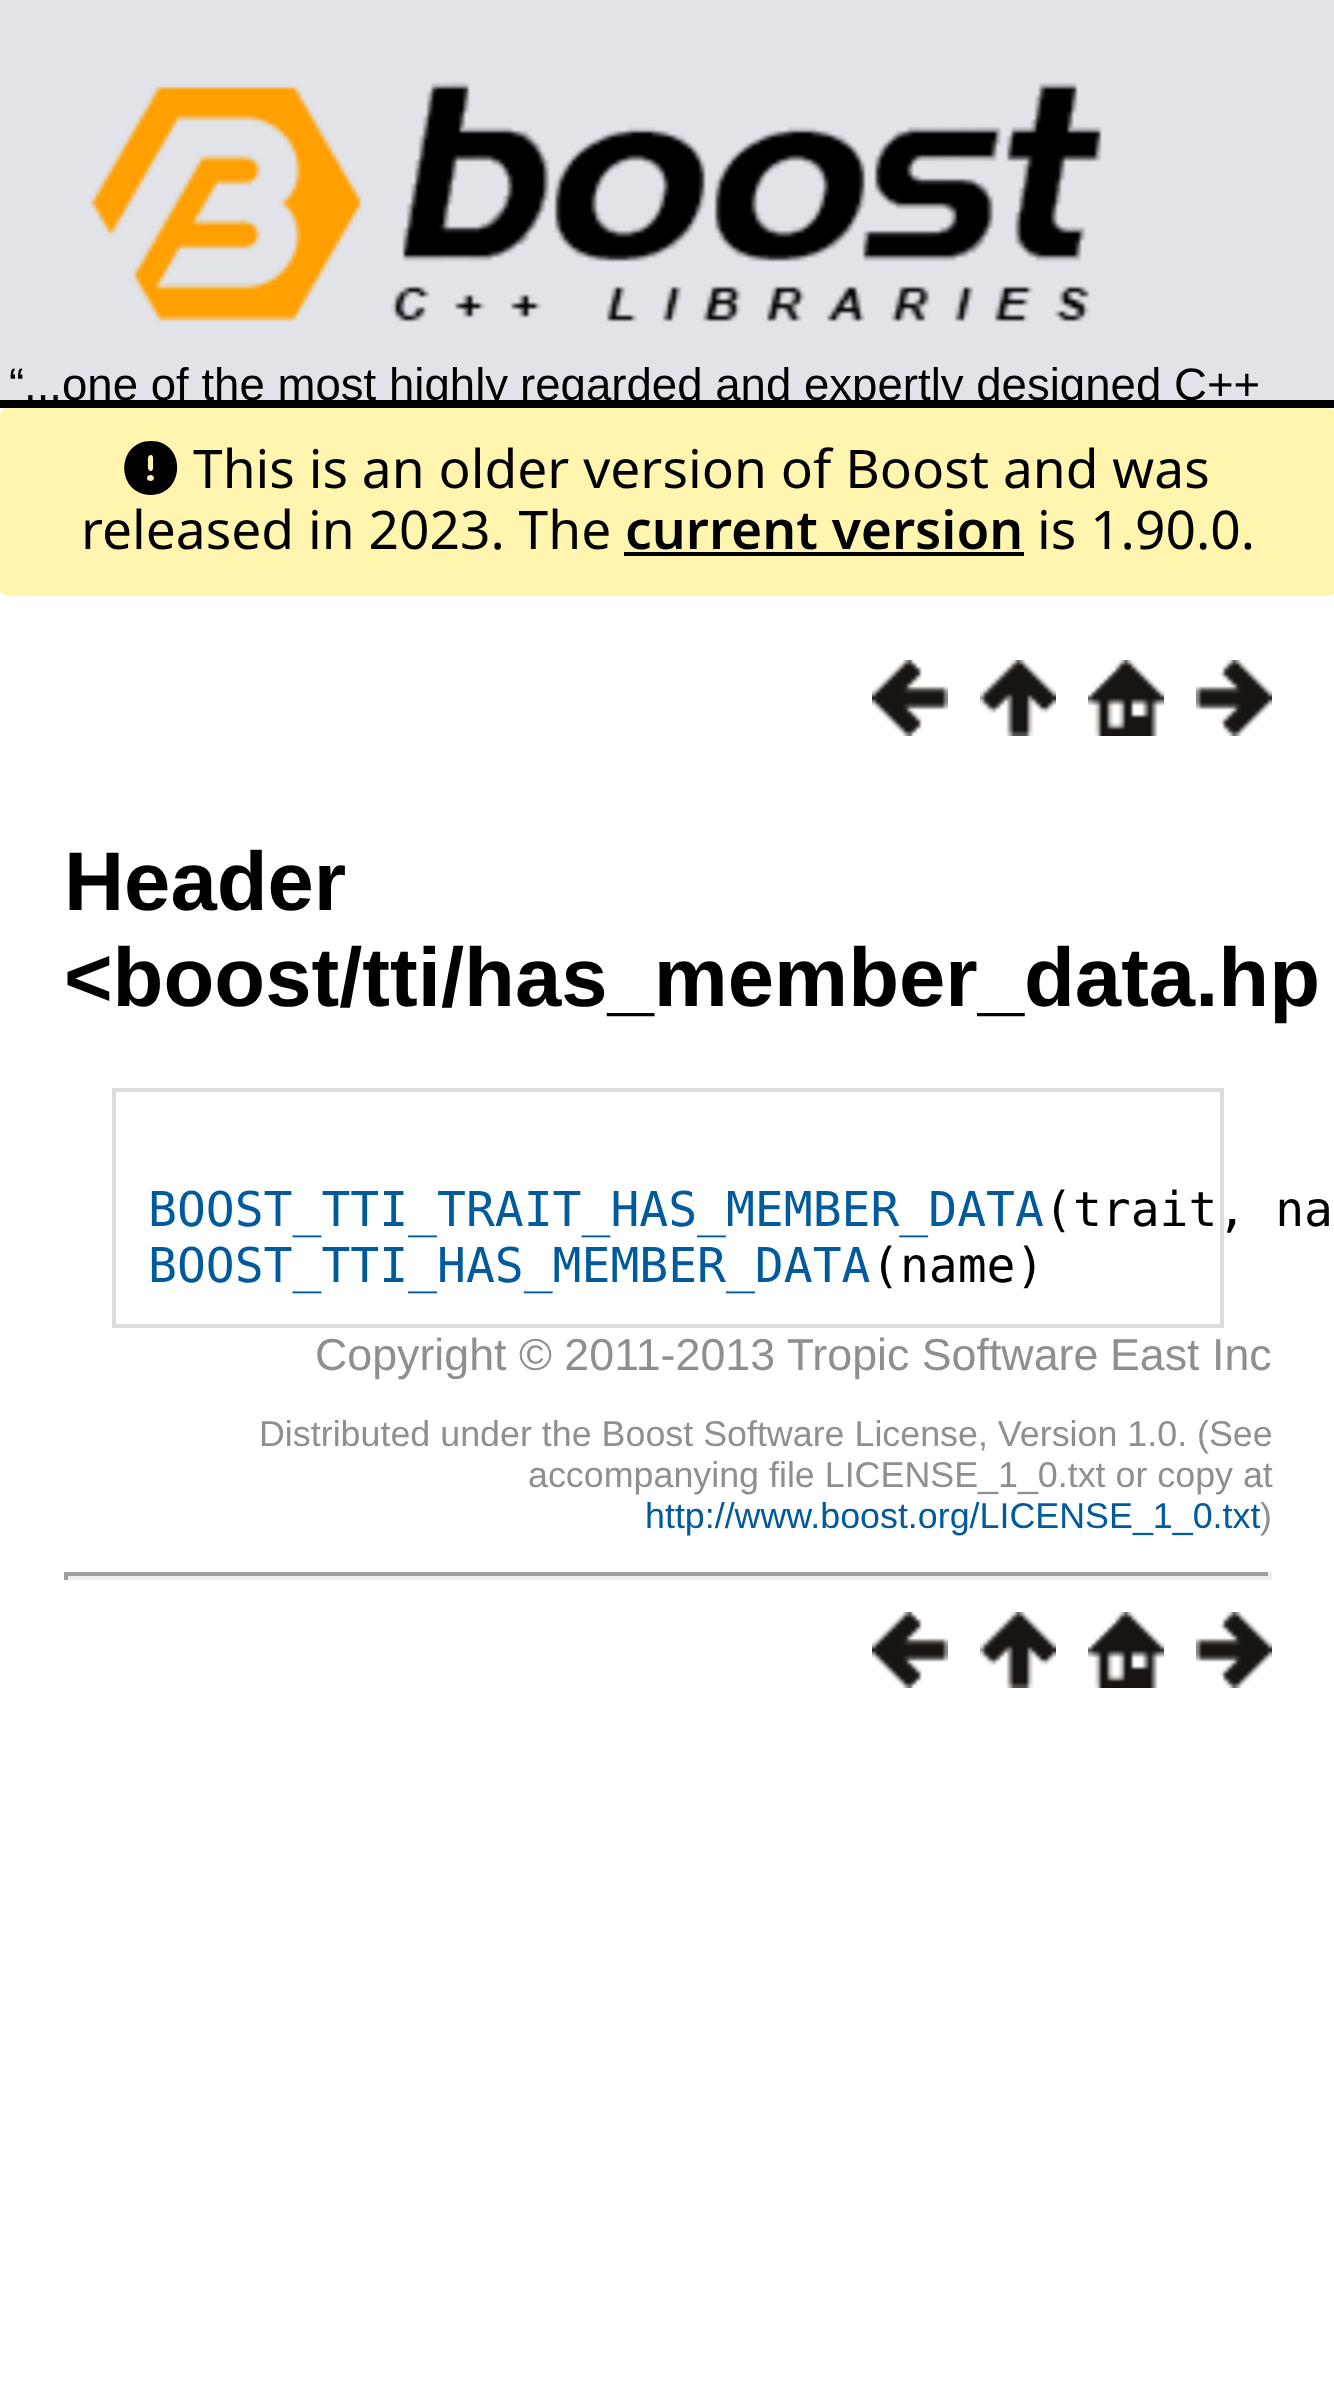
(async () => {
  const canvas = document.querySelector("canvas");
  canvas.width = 1334;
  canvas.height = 2387;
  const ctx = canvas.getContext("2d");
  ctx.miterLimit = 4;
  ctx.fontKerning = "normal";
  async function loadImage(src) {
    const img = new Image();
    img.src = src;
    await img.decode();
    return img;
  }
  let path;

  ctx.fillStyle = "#ffffff";
  ctx.fillRect(0, 0, 1334, 2387);
  ctx.fillStyle = "#e1e3e8";
  ctx.fillRect(0, 0, 1334, 400);
  ctx.fillStyle = "#000000";
  ctx.fillRect(0, 400, 1334, 8);
  ctx.drawImage(await loadImage("img/1.png"), 90, 82, 1012, 240);
  ctx.fillStyle = "#fff5ae";
  ctx.beginPath();
  ctx.roundRect(0, 408, 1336, 188, 8);
  ctx.fill();
  ctx.fillStyle = "#000000";
  path = new Path2D("M151 495C186 494 186 441 151 441C116 441 115 494 151 495ZM151 455C154 455 153 461 153 463C153 465 154 471 151 471C147 471 148 465 148 463C148 461 147 455 151 455ZM147 478C147 474 154 474 154 478C154 482 147 482 147 478Z");
  ctx.fill(path);
  ctx.fillRect(624, 552, 400, 4);
  ctx.drawImage(await loadImage("img/2.png"), 872, 660, 76, 76);
  ctx.drawImage(await loadImage("img/3.png"), 980, 660, 76, 76);
  ctx.drawImage(await loadImage("img/4.png"), 1088, 660, 76, 76);
  ctx.drawImage(await loadImage("img/5.png"), 1196, 660, 76, 76);
  ctx.strokeStyle = "#dcdcdc";
  ctx.lineWidth = 4;
  ctx.strokeRect(114, 1090, 1108, 236);
  for (const [x, y, w, h, color] of [
    [64, 1572, 1208, 4, "#9f9f9f"],
    [1268, 1572, 4, 8, "#eeeeee"],
    [64, 1576, 1208, 4, "#eeeeee"],
    [64, 1572, 4, 8, "#9f9f9f"],
  ]) {
    ctx.fillStyle = color;
    ctx.fillRect(x, y, w, h);
  }
  ctx.drawImage(await loadImage("img/2.png"), 872, 1612, 76, 76);
  ctx.drawImage(await loadImage("img/3.png"), 980, 1612, 76, 76);
  ctx.drawImage(await loadImage("img/4.png"), 1088, 1612, 76, 76);
  ctx.drawImage(await loadImage("img/5.png"), 1196, 1612, 76, 76);
  ctx.font = "45.6px Liberation Sans";
  ctx.fillStyle = "#000000";
  ctx.fillText("“", 9, 400);
  ctx.save();
  ctx.beginPath();
  ctx.rect(0, 0, 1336, 400);
  ctx.clip();
  ctx.fillText("...one of the most highly", 24, 400);
  ctx.fillText("regarded and expertly designed C++", 520, 400);
  ctx.restore();
  ctx.font = "53.3px Noto Sans";
  ctx.fillText("This is an older version of Boost and was", 193, 488);
  ctx.fillText("released in 2023. The", 81, 549);
  ctx.font = "600 53.3px Noto Sans";
  ctx.fillText("current version", 625, 549);
  ctx.font = "53.3px Noto Sans";
  ctx.fillText("is 1.90.0.", 1037, 549);
  ctx.font = "bold 83.25px Liberation Sans";
  ctx.fillText("Header", 64, 910);
  ctx.fillText("<boost/tti/has_member_data.hp", 64, 1006);
  ctx.font = "48px DejaVu Sans Mono";
  ctx.fillStyle = "#005a9c";
  ctx.fillText("BOOST_TTI_TRAIT_HAS_MEMBER_DATA", 148, 1226);
  ctx.fillStyle = "#000000";
  ctx.fillText("(trait, na", 1044, 1226);
  ctx.fillStyle = "#005a9c";
  ctx.fillText("BOOST_TTI_HAS_MEMBER_DATA", 148, 1282);
  ctx.fillStyle = "#000000";
  ctx.fillText("(name)", 871, 1282);
  ctx.font = "44.75px Liberation Sans";
  ctx.fillStyle = "#8f8f8f";
  ctx.fillText("Copyright © 2011-2013 Tropic Software", 315, 1370);
  ctx.fillText("East Inc", 1110, 1370);
  ctx.font = "35.85px Liberation Sans";
  ctx.fillText("Distributed under the Boost Software License, Version 1.0. (See", 259, 1446);
  ctx.fillText("accompanying file LICENSE_1_0.txt or copy at", 528, 1487);
  ctx.fillStyle = "#005a9c";
  ctx.fillText("http://www.boost.org/LICENSE_1_0.txt", 645, 1528);
  ctx.fillStyle = "#8f8f8f";
  ctx.fillText(")", 1260, 1528);
})();
